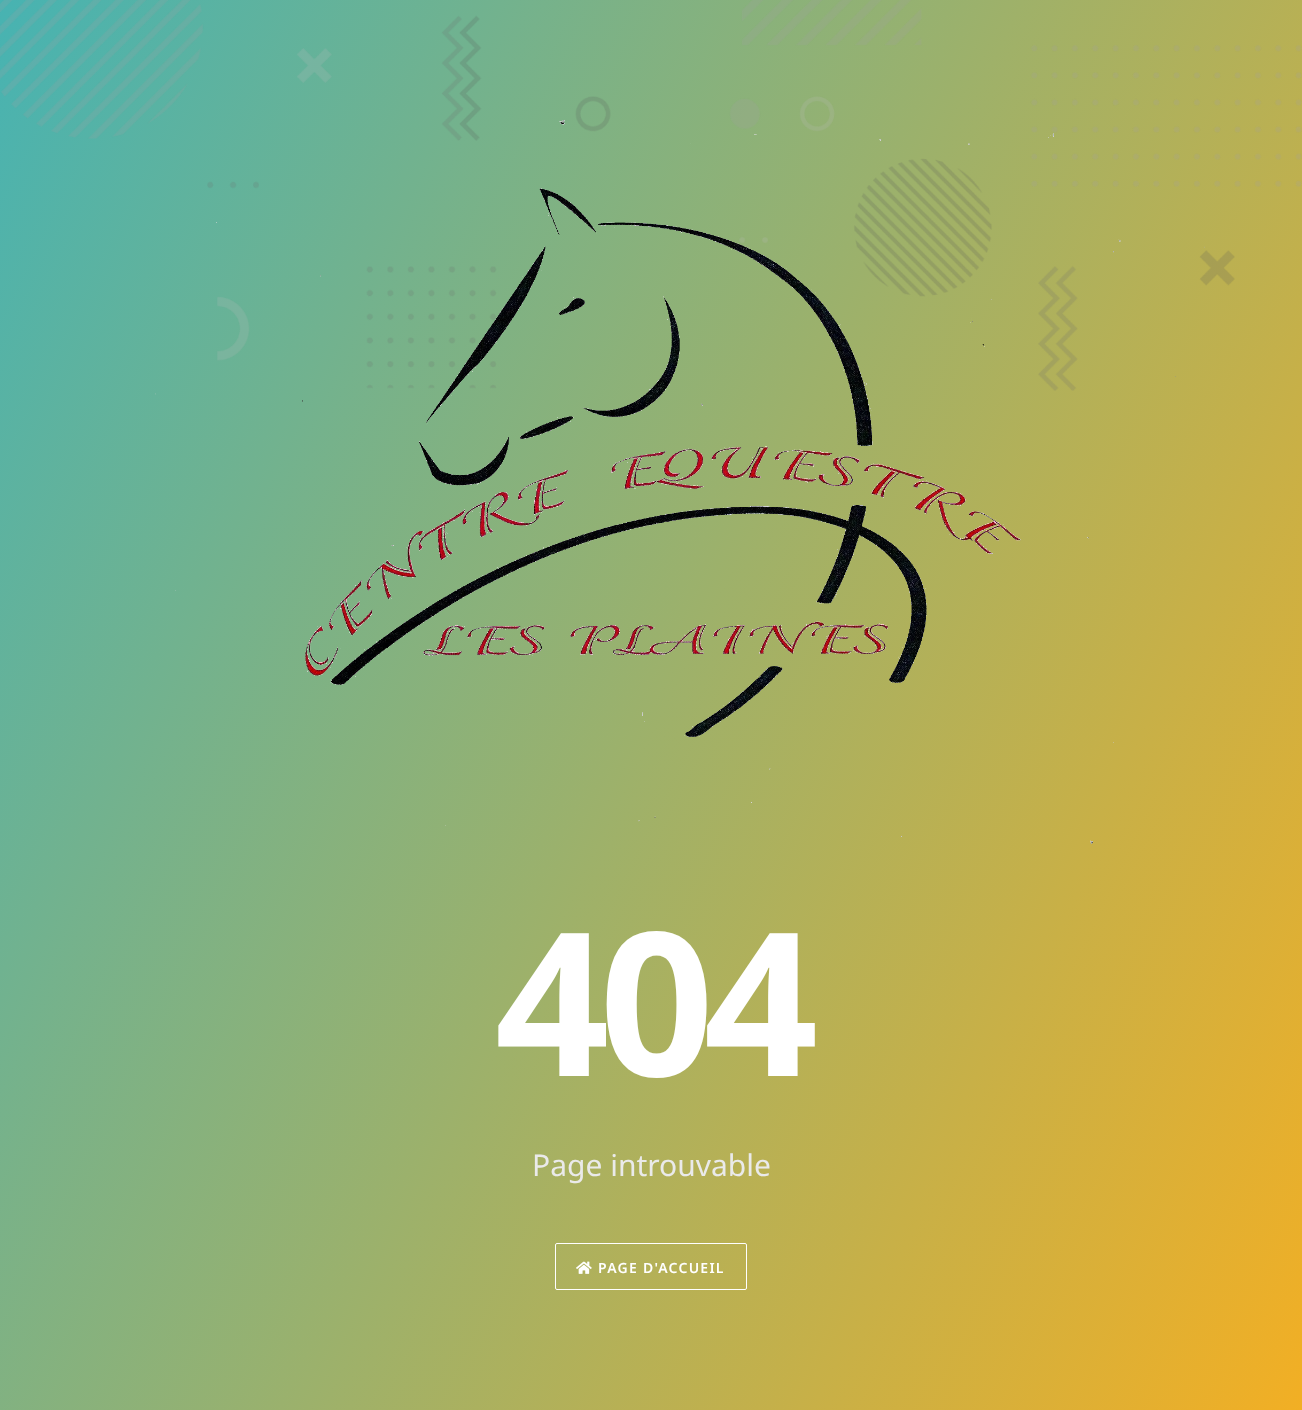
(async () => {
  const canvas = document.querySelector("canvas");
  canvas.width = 1302;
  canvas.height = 1410;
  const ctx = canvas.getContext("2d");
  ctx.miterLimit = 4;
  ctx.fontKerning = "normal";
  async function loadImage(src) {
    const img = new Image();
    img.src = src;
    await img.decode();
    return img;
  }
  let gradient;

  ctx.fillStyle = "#ffffff";
  ctx.fillRect(0, 0, 1302, 1410);
  gradient = ctx.createLinearGradient(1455, 1097, -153, 313);
  gradient.addColorStop(0, "#f2af24");
  gradient.addColorStop(1, "#47b3b2");
  ctx.fillStyle = gradient;
  ctx.fillRect(0, 0, 1302, 1410);
  ctx.drawImage(await loadImage("img/1.png"), 0, 0, 1302, 391);
  ctx.drawImage(await loadImage("img/2.png"), 155, 120, 1050, 724);
  ctx.beginPath();
  ctx.roundRect(555.5, 1243.5, 191, 46, 1.5);
  ctx.strokeStyle = "#ffffff";
  ctx.stroke();
  ctx.drawImage(await loadImage("img/3.png"), 576, 1261, 16, 13);
  ctx.letterSpacing = "-10px";
  ctx.font = "bold 200px Noto Sans";
  ctx.fillStyle = "#ffffff";
  ctx.fillText("404", 495, 1076);
  ctx.letterSpacing = "0px";
  ctx.font = "30px Noto Sans";
  ctx.fillStyle = "#eaeaea";
  ctx.fillText("Page introuvable", 532, 1176);
  ctx.letterSpacing = "1.25px";
  ctx.font = "600 14px Noto Sans";
  ctx.fillStyle = "#ffffff";
  ctx.fillText("PAGE D'ACCUEIL", 598, 1273);
})();
